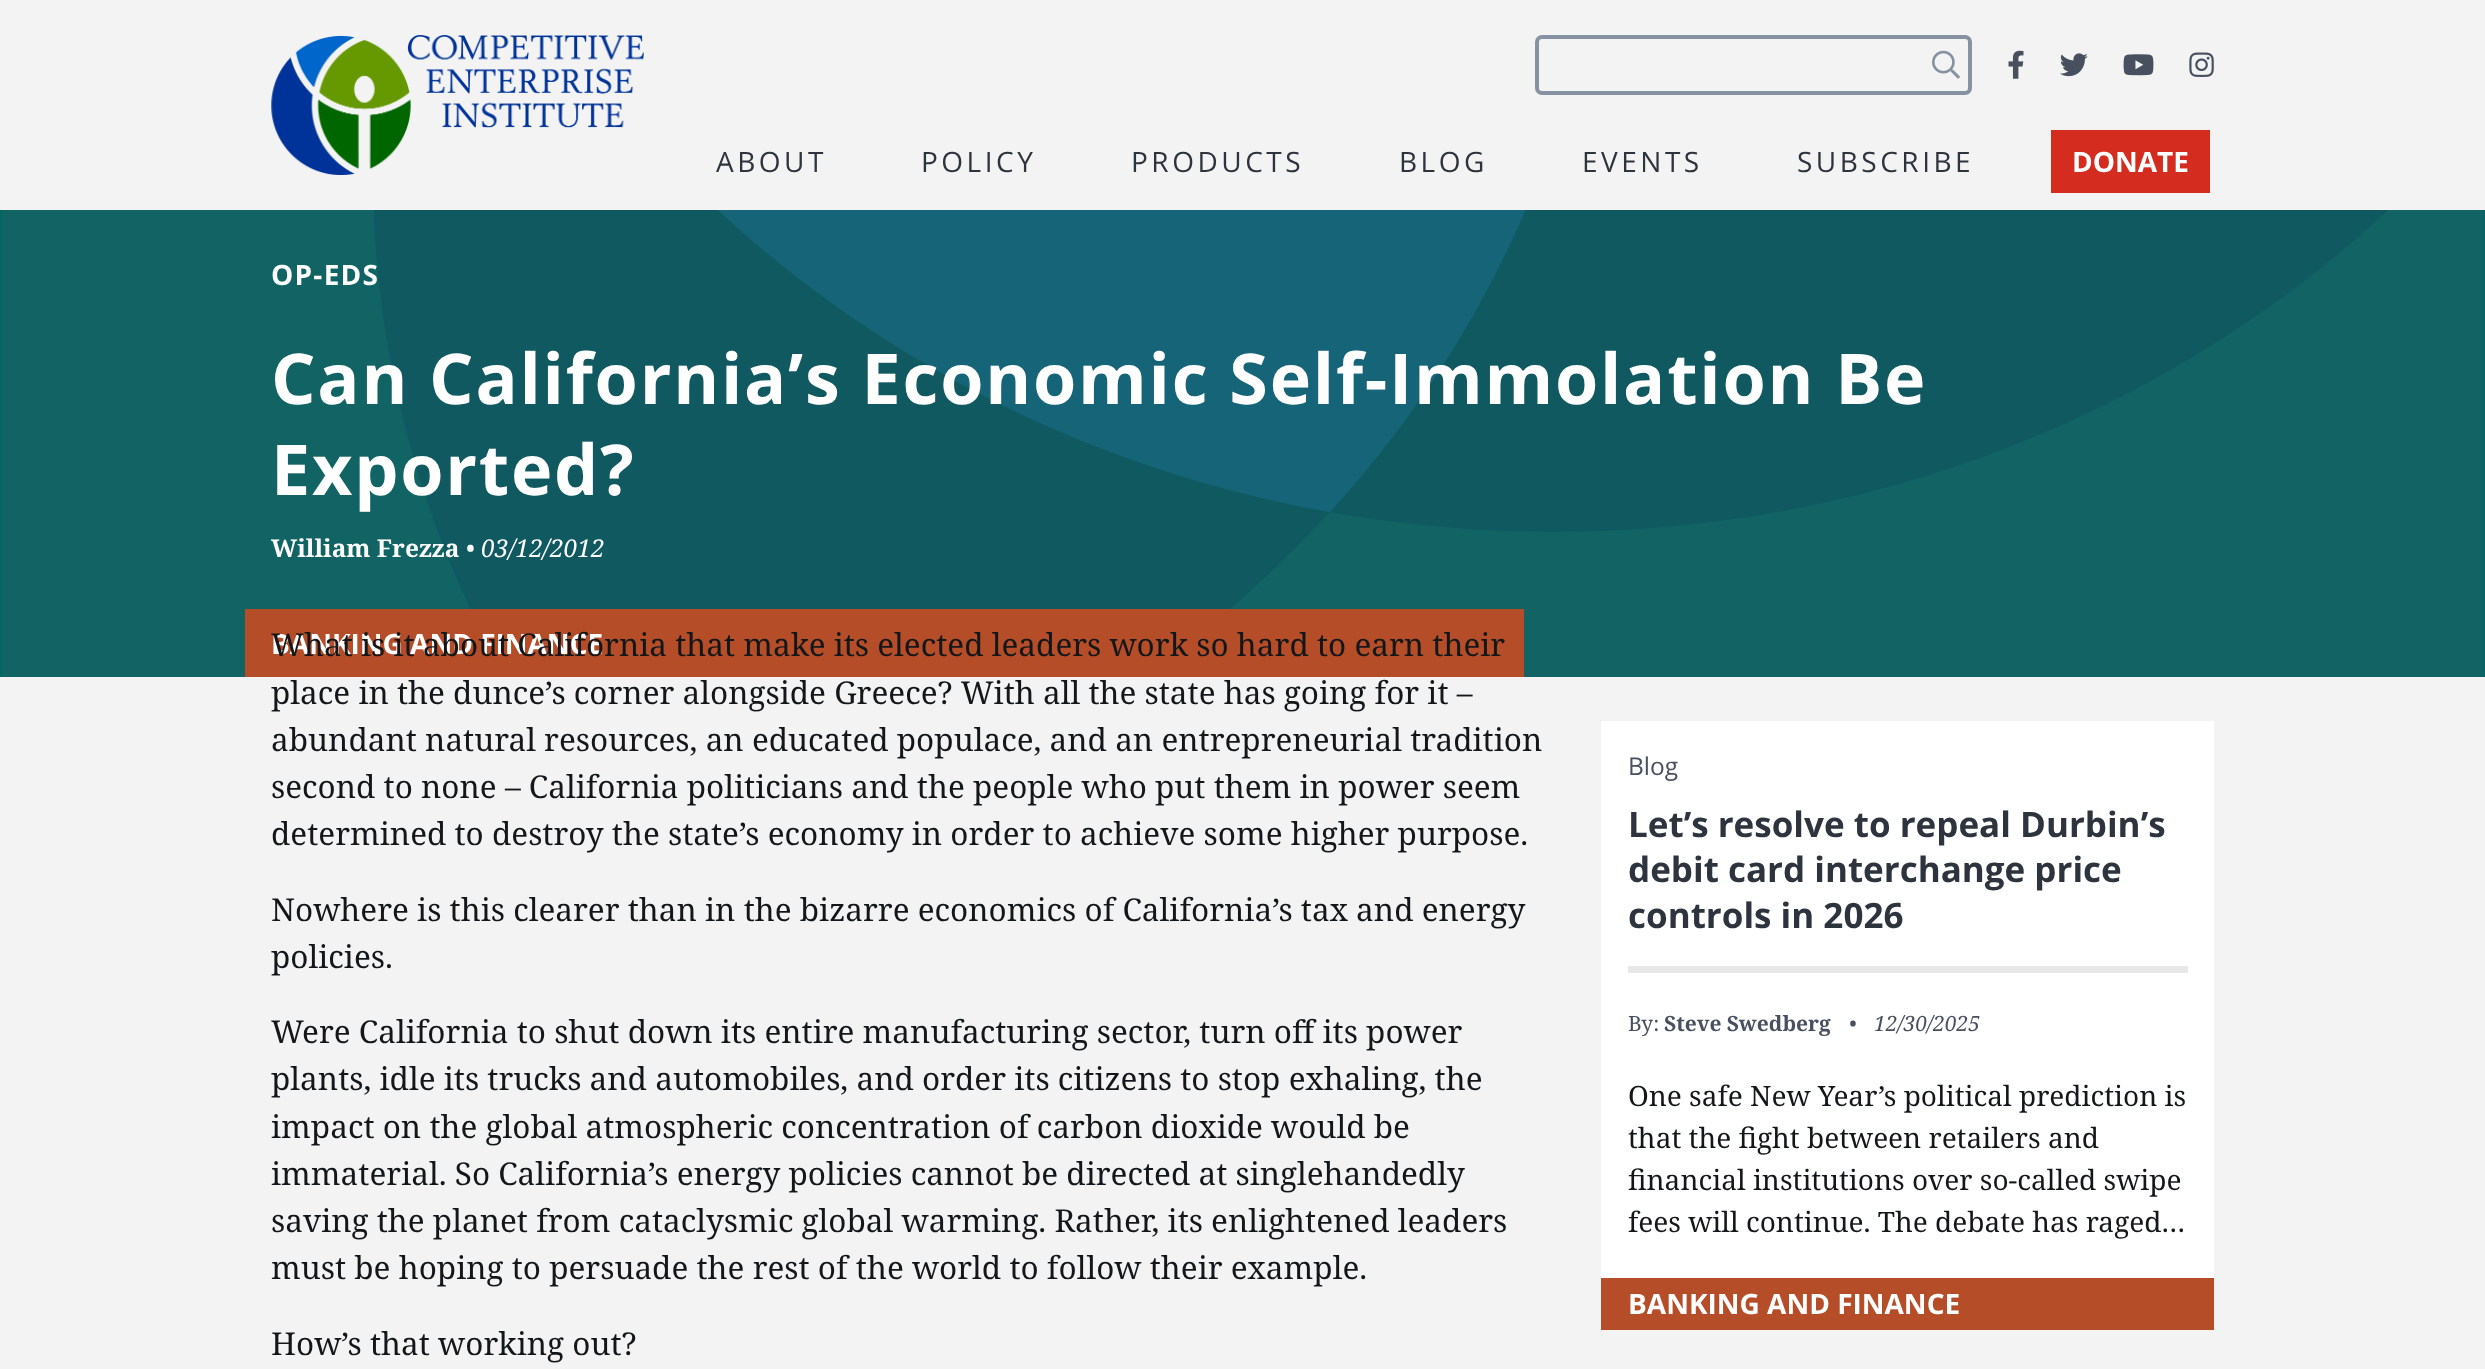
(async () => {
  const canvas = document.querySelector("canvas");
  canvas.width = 2485;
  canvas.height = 1369;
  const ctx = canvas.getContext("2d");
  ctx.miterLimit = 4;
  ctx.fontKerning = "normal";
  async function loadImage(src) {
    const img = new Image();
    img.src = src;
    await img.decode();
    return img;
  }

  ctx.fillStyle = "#f3f3f3";
  ctx.fillRect(0, 0, 2485, 1369);
  ctx.drawImage(await loadImage("img/1.png"), 271, 35, 373, 140);
  ctx.beginPath();
  ctx.roundRect(1537, 37, 433, 56, 5);
  ctx.strokeStyle = "#8691a2";
  ctx.lineWidth = 4;
  ctx.stroke();
  ctx.drawImage(await loadImage("img/2.png"), 1932, 50, 28, 29);
  ctx.drawImage(await loadImage("img/3.png"), 2008, 50, 16, 29);
  ctx.drawImage(await loadImage("img/4.png"), 2059, 53, 29, 24);
  ctx.drawImage(await loadImage("img/5.png"), 2123, 54, 31, 22);
  ctx.drawImage(await loadImage("img/6.png"), 2189, 52, 25, 25);
  ctx.fillStyle = "#d52c20";
  ctx.fillRect(2051, 130, 159, 63);
  ctx.fillStyle = "#006666";
  ctx.fillRect(0, 210, 2485, 467);
  ctx.drawImage(await loadImage("img/7.png"), 1, 210, 2483, 467);
  for (const [x, y, w, h, color] of [
    [245, 609, 1279, 68, "#b54d28"],
    [1601, 721, 613, 557, "#ffffff"],
    [1628, 966, 560, 7, "#e8e8e8"],
    [1601, 1278, 613, 52, "#b54d28"],
  ]) {
    ctx.fillStyle = color;
    ctx.fillRect(x, y, w, h);
  }
  ctx.letterSpacing = "3.5px";
  ctx.font = "28px Open Sans";
  ctx.fillStyle = "#2e343e";
  for (const [text, x, y] of [
    ["ABOUT", 716, 172],
    ["POLICY", 921, 172],
    ["PRODUCTS", 1131, 172],
    ["BLOG", 1399, 172],
    ["EVENTS", 1582, 172],
    ["SUBSCRIBE", 1797, 172],
  ]) {
    ctx.fillText(text, x, y);
  }
  ctx.letterSpacing = "0px";
  ctx.font = "bold 28px Open Sans";
  ctx.fillStyle = "#ffffff";
  ctx.fillText("DONATE", 2072, 172);
  ctx.letterSpacing = "1.25px";
  ctx.fillText("OP-EDS", 271, 285);
  ctx.letterSpacing = "0px";
  ctx.font = "bold 24.5px Noto Serif";
  ctx.fillText("William Frezza", 271, 557);
  ctx.font = "24.5px Noto Serif";
  ctx.fillText("•", 466, 557);
  ctx.font = "italic 24.5px Noto Serif";
  ctx.fillText("03/12/2012", 481, 557);
  ctx.font = "bold 28px Open Sans";
  ctx.fillText("BANKING AND FINANCE", 271, 654);
  ctx.letterSpacing = "1.75px";
  ctx.font = "bold 70px Open Sans";
  ctx.fillText("Can California’s Economic Self-Immolation Be", 271, 404);
  ctx.fillText("Exported?", 271, 495);
  ctx.letterSpacing = "0px";
  ctx.font = "31.5px Noto Serif";
  ctx.fillStyle = "#14171a";
  for (const [text, x, y] of [
    ["What is it about California that make its elected leaders work so hard to earn their", 271, 656],
    ["place in the dunce’s corner alongside Greece? With all the state has going for it –", 271, 704],
    ["abundant natural resources, an educated populace, and an entrepreneurial tradition", 271, 751],
    ["second to none – California politicians and the people who put them in power seem", 271, 798],
    ["determined to destroy the state’s economy in order to achieve some higher purpose.", 271, 845],
    ["Nowhere is this clearer than in the bizarre economics of California’s tax and energy", 271, 921],
    ["policies.", 271, 968],
    ["Were California to shut down its entire manufacturing sector, turn off its power", 271, 1043],
    ["plants, idle its trucks and automobiles, and order its citizens to stop exhaling, the", 271, 1090],
    ["impact on the global atmospheric concentration of carbon dioxide would be", 271, 1138],
    ["immaterial. So California’s energy policies cannot be directed at singlehandedly", 271, 1185],
    ["saving the planet from cataclysmic global warming. Rather, its enlightened leaders", 271, 1232],
    ["must be hoping to persuade the rest of the world to follow their example.", 271, 1279],
    ["How’s that working out?", 271, 1355],
  ]) {
    ctx.fillText(text, x, y);
  }
  ctx.font = "24.5px Open Sans";
  ctx.fillStyle = "#48505f";
  ctx.fillText("Blog", 1628, 775);
  ctx.font = "bold 35px Open Sans";
  ctx.fillStyle = "#2e343e";
  for (const [text, x, y] of [
    ["Let’s resolve to repeal Durbin’s", 1628, 837],
    ["debit card interchange price", 1628, 882],
    ["controls in 2026", 1628, 928],
  ]) {
    ctx.fillText(text, x, y);
  }
  ctx.font = "21px Noto Serif";
  ctx.fillStyle = "#48505f";
  ctx.fillText("By:", 1628, 1031);
  ctx.font = "bold 21px Noto Serif";
  ctx.fillText("Steve Swedberg", 1664, 1031);
  ctx.font = "italic 21px Noto Serif";
  ctx.fillText("•", 1849, 1031);
  ctx.fillText("12/30/2025", 1874, 1031);
  ctx.font = "28px Noto Serif";
  ctx.fillStyle = "#14171a";
  for (const [text, x, y] of [
    ["One safe New Year’s political prediction is", 1628, 1106],
    ["that the fight between retailers and", 1628, 1148],
    ["financial institutions over so-called swipe", 1628, 1190],
    ["fees will continue. The debate has raged…", 1628, 1232],
  ]) {
    ctx.fillText(text, x, y);
  }
  ctx.font = "bold 28px Open Sans";
  ctx.fillStyle = "#ffffff";
  ctx.fillText("BANKING AND FINANCE", 1628, 1314);
})();
